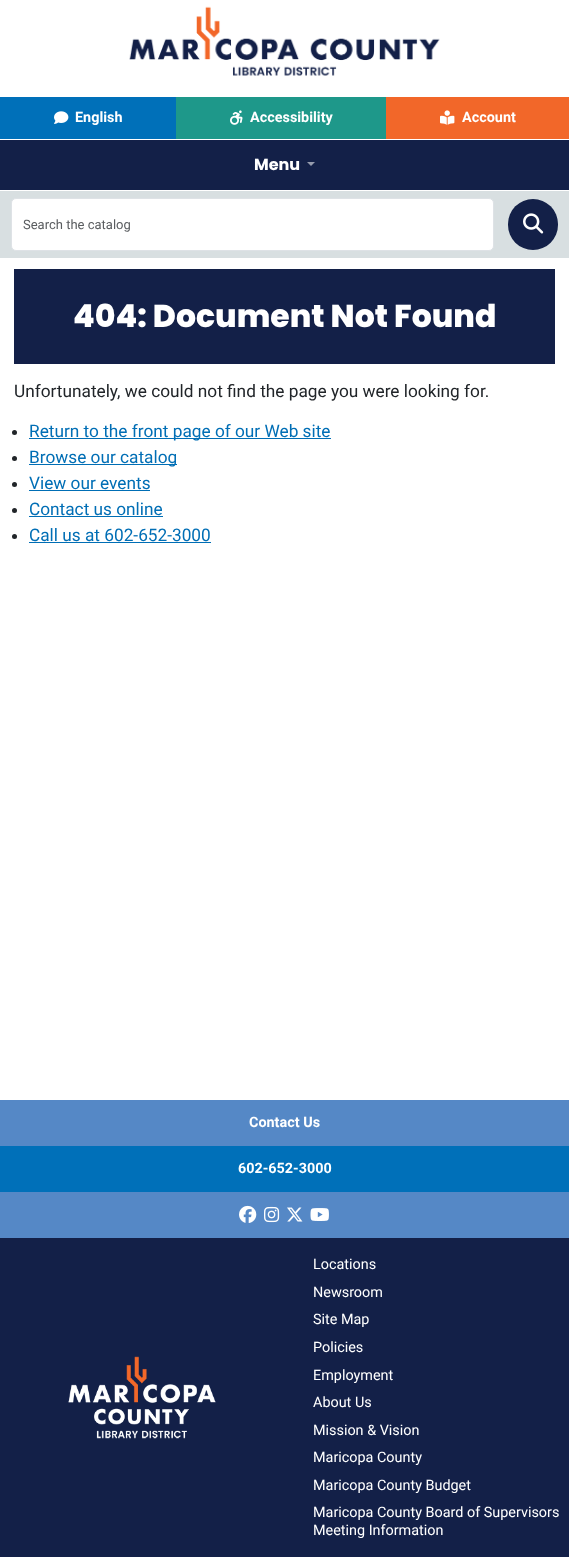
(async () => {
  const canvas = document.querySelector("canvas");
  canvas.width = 569;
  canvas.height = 1557;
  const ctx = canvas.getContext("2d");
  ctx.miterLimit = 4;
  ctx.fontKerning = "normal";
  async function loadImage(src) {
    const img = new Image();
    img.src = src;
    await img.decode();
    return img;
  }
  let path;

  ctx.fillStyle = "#ffffff";
  ctx.fillRect(0, 0, 569, 1557);
  ctx.drawImage(await loadImage("img/1.png"), 129, 6, 311, 70);
  ctx.fillStyle = "#0070b9";
  ctx.fillRect(0, 97, 176, 42);
  ctx.drawImage(await loadImage("img/2.png"), 54, 111, 15, 13);
  ctx.fillStyle = "#1e988a";
  ctx.fillRect(176, 97, 210, 42);
  ctx.drawImage(await loadImage("img/3.png"), 230, 110, 13, 15);
  ctx.fillStyle = "#f26729";
  ctx.fillRect(386, 97, 183, 42);
  ctx.drawImage(await loadImage("img/4.png"), 440, 110, 15, 15);
  ctx.fillStyle = "#132048";
  ctx.fillRect(0, 140, 569, 50);
  ctx.fillStyle = "#959bad";
  path = new Path2D("M307 162H315L311 166Z");
  ctx.fill(path);
  ctx.fillStyle = "#d8dfe1";
  ctx.fillRect(0, 191, 569, 67);
  ctx.fillStyle = "#ffffff";
  ctx.beginPath();
  ctx.roundRect(11.5, 198.5, 482, 52, 4.5);
  ctx.fill();
  ctx.strokeStyle = "#dee2e6";
  ctx.stroke();
  ctx.fillStyle = "#132048";
  ctx.beginPath();
  ctx.roundRect(508, 199, 50, 51, 25);
  ctx.fill();
  ctx.drawImage(await loadImage("img/5.png"), 523, 213, 21, 21);
  ctx.fillRect(14, 269, 541, 95);
  ctx.fillStyle = "#212529";
  ctx.beginPath();
  ctx.arc(14.5, 432.5, 2.5, 0, Math.PI * 2);
  ctx.fill();
  ctx.fillStyle = "#006eb5";
  ctx.fillRect(29, 438, 302, 1);
  ctx.fillStyle = "#212529";
  ctx.beginPath();
  ctx.arc(14.5, 458.5, 2.5, 0, Math.PI * 2);
  ctx.fill();
  ctx.fillStyle = "#006eb5";
  ctx.fillRect(29, 464, 148, 1);
  ctx.fillStyle = "#212529";
  ctx.beginPath();
  ctx.arc(14.5, 484.5, 2.5, 0, Math.PI * 2);
  ctx.fill();
  ctx.fillStyle = "#006eb5";
  ctx.fillRect(29, 490, 121, 1);
  ctx.fillStyle = "#212529";
  ctx.beginPath();
  ctx.arc(14.5, 510.5, 2.5, 0, Math.PI * 2);
  ctx.fill();
  ctx.fillStyle = "#006eb5";
  ctx.fillRect(29, 516, 134, 1);
  ctx.fillStyle = "#212529";
  ctx.beginPath();
  ctx.arc(14.5, 536.5, 2.5, 0, Math.PI * 2);
  ctx.fill();
  for (const [x, y, w, h, color] of [
    [29, 542, 182, 1, "#006eb5"],
    [0, 1238, 569, 319, "#132048"],
    [0, 1100, 569, 138, "#5588c6"],
    [0, 1146, 569, 46, "#0070b9"],
  ]) {
    ctx.fillStyle = color;
    ctx.fillRect(x, y, w, h);
  }
  ctx.drawImage(await loadImage("img/6.png"), 239, 1205, 18, 18);
  ctx.drawImage(await loadImage("img/7.png"), 264, 1206, 16, 17);
  ctx.drawImage(await loadImage("img/8.png"), 287, 1207, 16, 15);
  ctx.drawImage(await loadImage("img/9.png"), 310, 1208, 19, 13);
  ctx.drawImage(await loadImage("img/10.png"), 68, 1356, 148, 83);
  ctx.font = "bold 14.4px Roboto";
  ctx.fillStyle = "#ffffff";
  for (const [text, x, y] of [
    ["English", 75, 122],
    ["Accessibility", 250, 122],
    ["Account", 462, 122],
  ]) {
    ctx.fillText(text, x, y);
  }
  ctx.font = "bold 16px Poppins";
  ctx.fillText("Menu", 254, 170);
  ctx.font = "13px Roboto";
  ctx.fillStyle = "#595c5f";
  ctx.fillText("Search the catalog", 23, 229);
  ctx.font = "800 31.5px Poppins";
  ctx.fillStyle = "#ffffff";
  ctx.fillText("404: Document Not Found", 73, 327);
  ctx.font = "17.25px Roboto";
  ctx.fillStyle = "#212529";
  ctx.fillText("Unfortunately, we could not find the page you were looking for.", 14, 397);
  ctx.fillStyle = "#006eb5";
  for (const [text, x, y] of [
    ["Return to the front page of our Web site", 29, 437],
    ["Browse our catalog", 29, 463],
    ["View our events", 29, 489],
    ["Contact us online", 29, 515],
    ["Call us at 602-652-3000", 29, 541],
  ]) {
    ctx.fillText(text, x, y);
  }
  ctx.font = "bold 14.4px Roboto";
  ctx.fillStyle = "#ffffff";
  ctx.fillText("Contact Us", 249, 1127);
  ctx.fillText("602-652-3000", 238, 1173);
  ctx.font = "14.4px Roboto";
  for (const [text, x, y] of [
    ["Locations", 313, 1269],
    ["Newsroom", 313, 1297],
    ["Site Map", 313, 1324],
    ["Policies", 313, 1352],
    ["Employment", 313, 1380],
    ["About Us", 313, 1407],
    ["Mission & Vision", 313, 1435],
    ["Maricopa County", 313, 1462],
    ["Maricopa County Budget", 313, 1490],
    ["Maricopa County Board of Supervisors", 313, 1517],
    ["Meeting Information", 313, 1535],
  ]) {
    ctx.fillText(text, x, y);
  }
})();
